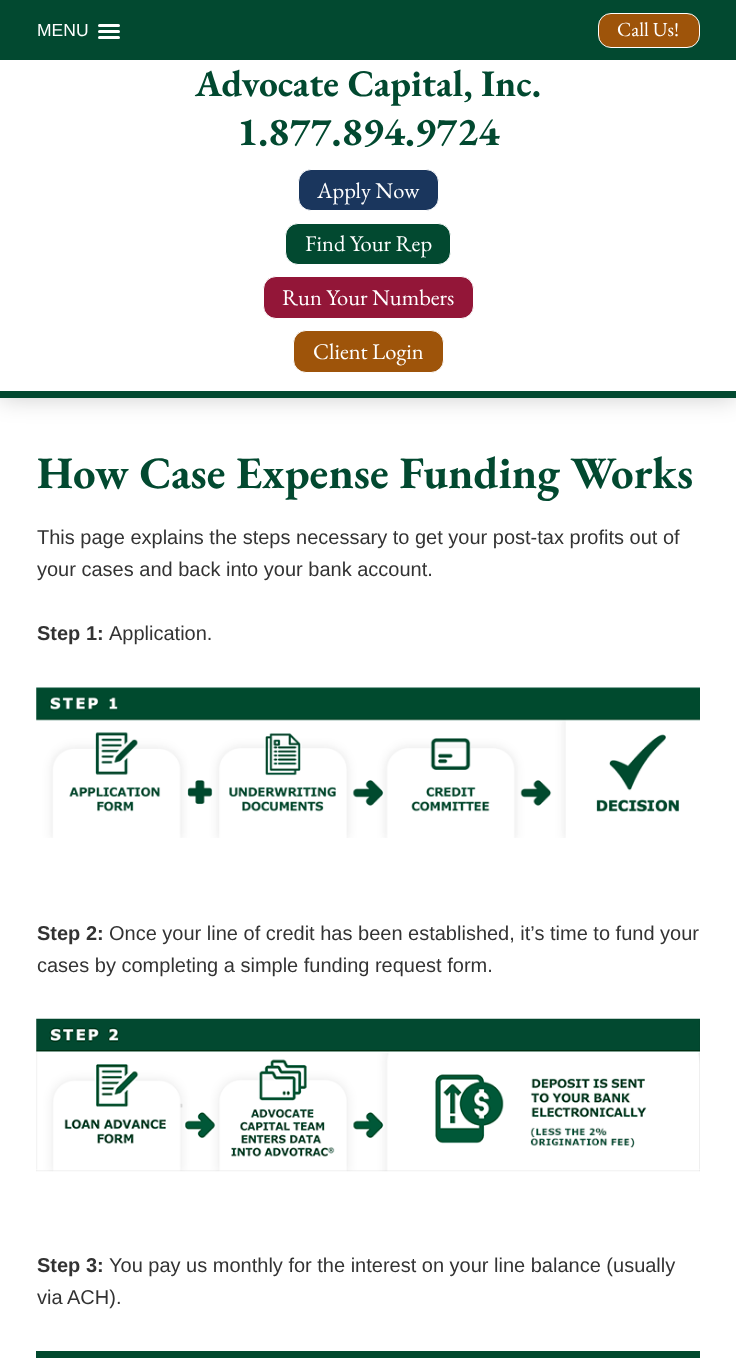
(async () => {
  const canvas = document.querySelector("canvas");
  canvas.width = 736;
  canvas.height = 1358;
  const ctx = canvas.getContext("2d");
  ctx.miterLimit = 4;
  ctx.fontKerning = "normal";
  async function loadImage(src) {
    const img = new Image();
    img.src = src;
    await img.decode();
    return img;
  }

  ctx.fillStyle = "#ffffff";
  ctx.fillRect(0, 0, 736, 1358);
  ctx.fillStyle = "rgba(0, 0, 0, 0.2)";
  ctx.filter = "blur(12.5px)";
  ctx.beginPath();
  ctx.rect(0, 56, 736, 342);
  ctx.fill();
  ctx.filter = "none";
  ctx.fillStyle = "#024930";
  ctx.fillRect(0, 0, 736, 60);
  ctx.fillStyle = "#ffffff";
  ctx.beginPath();
  ctx.roundRect(98, 24, 22, 3, 1.5);
  ctx.fill();
  ctx.beginPath();
  ctx.roundRect(98, 30, 22, 3, 1.5);
  ctx.fill();
  ctx.beginPath();
  ctx.roundRect(98, 36, 22, 3, 1.5);
  ctx.fill();
  ctx.fillStyle = "#9e540a";
  ctx.beginPath();
  ctx.roundRect(598.5, 13.5, 101, 34, 12.5);
  ctx.fill();
  ctx.strokeStyle = "#ffffff";
  ctx.stroke();
  ctx.fillStyle = "#ffffff";
  ctx.fillRect(0, 60, 736, 331);
  ctx.fillStyle = "#024930";
  ctx.fillRect(0, 391, 736, 7);
  ctx.fillStyle = "#1a365d";
  ctx.beginPath();
  ctx.roundRect(298.5, 169.5, 140, 41, 12.5);
  ctx.fill();
  ctx.stroke();
  ctx.fillStyle = "#024930";
  ctx.beginPath();
  ctx.roundRect(285.5, 223.5, 165, 41, 12.5);
  ctx.fill();
  ctx.stroke();
  ctx.fillStyle = "#931638";
  ctx.beginPath();
  ctx.roundRect(263.5, 276.5, 210, 42, 12.5);
  ctx.fill();
  ctx.stroke();
  ctx.fillStyle = "#9e540a";
  ctx.beginPath();
  ctx.roundRect(293.5, 330.5, 150, 42, 12.5);
  ctx.fill();
  ctx.stroke();
  ctx.drawImage(await loadImage("img/1.png"), 36, 687, 664, 151);
  ctx.drawImage(await loadImage("img/2.png"), 36, 1018, 664, 154);
  ctx.fillStyle = "#01492e";
  ctx.fillRect(36, 1351, 664, 7);
  ctx.font = "17.5px Liberation Sans";
  ctx.fillStyle = "#ffffff";
  ctx.fillText("MENU", 37, 36);
  ctx.font = "20px EB Garamond";
  ctx.fillText("Call Us!", 617, 36);
  ctx.font = "bold 37.5px EB Garamond";
  ctx.fillStyle = "#024930";
  ctx.fillText("Advocate Capital, Inc.", 195, 96);
  ctx.font = "bold 40px EB Garamond";
  ctx.fillText("1.877.894.9724", 237, 145);
  ctx.font = "22.5px EB Garamond";
  ctx.fillStyle = "#ffffff";
  for (const [text, x, y] of [
    ["Apply Now", 317, 198],
    ["Find Your Rep", 305, 251],
    ["Run Your Numbers", 282, 305],
    ["Client Login", 313, 359],
  ]) {
    ctx.fillText(text, x, y);
  }
  ctx.font = "bold 45px EB Garamond";
  ctx.fillStyle = "#024930";
  ctx.fillText("How Case Expense Funding Works", 37, 488);
  ctx.font = "20px Liberation Sans";
  ctx.fillStyle = "#333333";
  ctx.fillText("This page explains the steps necessary to get your post-tax profits out of", 37, 544);
  ctx.fillText("your cases and back into your bank account.", 37, 576);
  ctx.font = "bold 20px Liberation Sans";
  ctx.fillText("Step 1:", 37, 640);
  ctx.font = "20px Liberation Sans";
  ctx.fillText("Application.", 109, 640);
  ctx.font = "bold 20px Liberation Sans";
  ctx.fillText("Step 2:", 37, 940);
  ctx.font = "20px Liberation Sans";
  ctx.fillText("Once your line of credit has been established, it’s time to fund your", 109, 940);
  ctx.fillText("cases by completing a simple funding request form.", 37, 972);
  ctx.font = "bold 20px Liberation Sans";
  ctx.fillText("Step 3:", 37, 1272);
  ctx.font = "20px Liberation Sans";
  ctx.fillText("You pay us monthly for the interest on your line balance (usually", 109, 1272);
  ctx.fillText("via ACH).", 37, 1304);
})();
